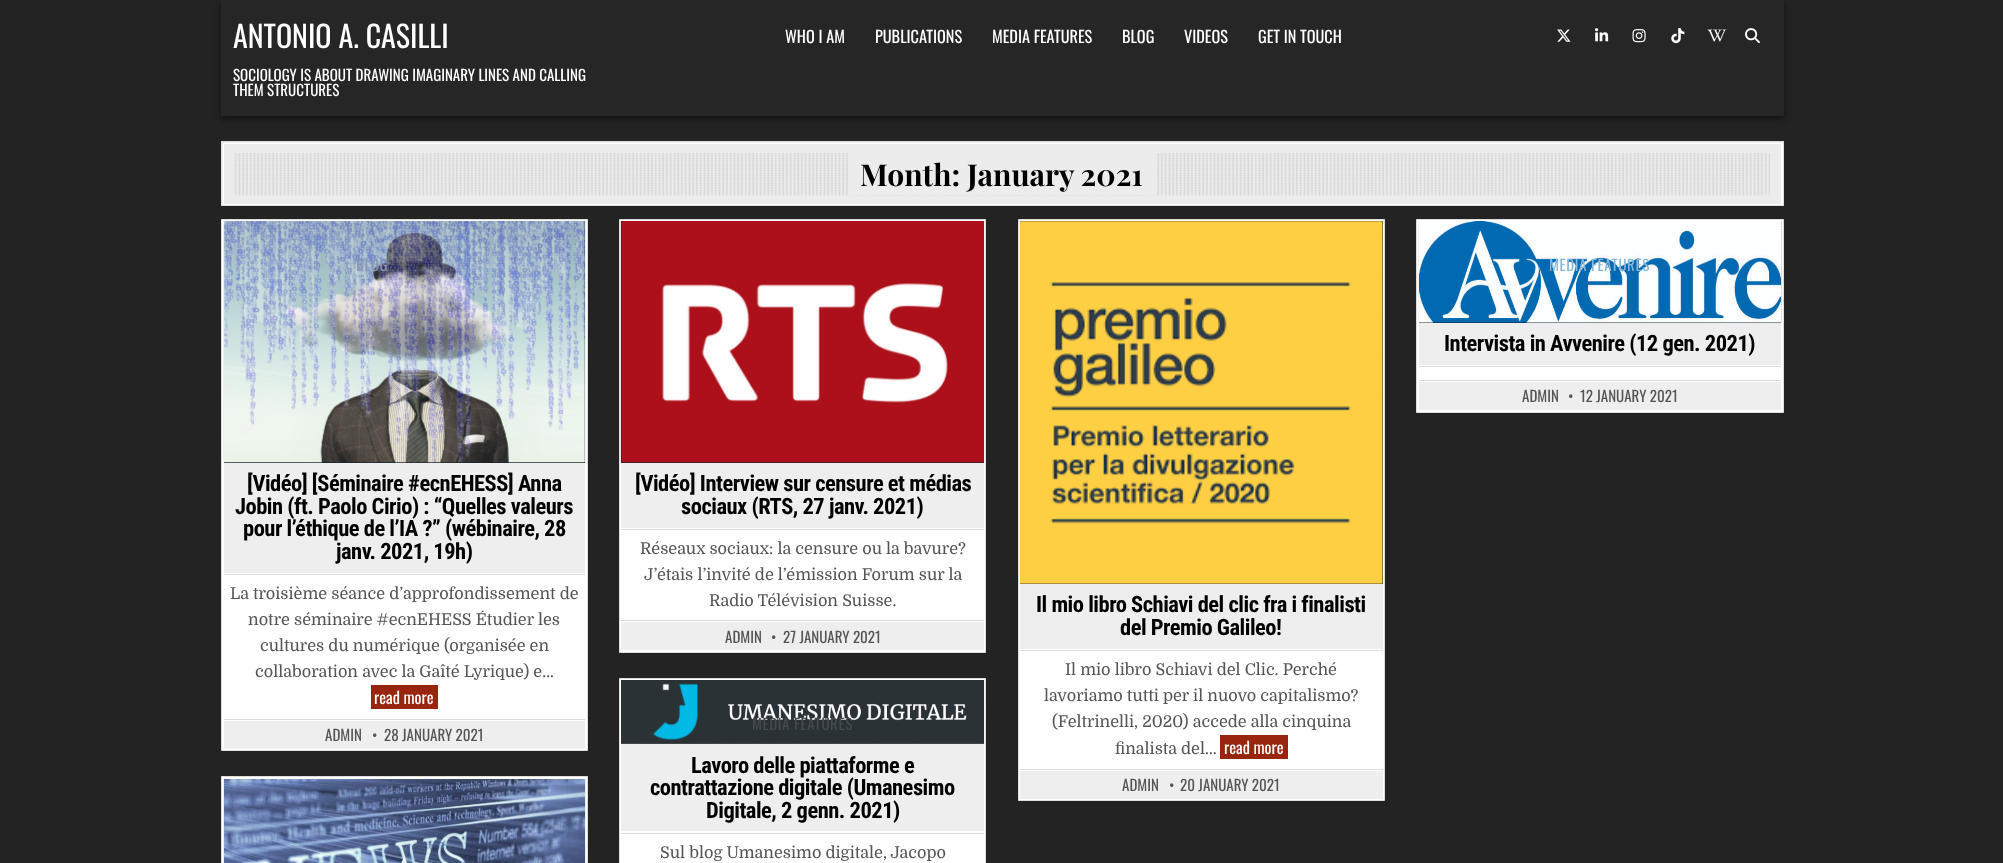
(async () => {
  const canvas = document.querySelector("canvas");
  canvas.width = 2003;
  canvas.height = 863;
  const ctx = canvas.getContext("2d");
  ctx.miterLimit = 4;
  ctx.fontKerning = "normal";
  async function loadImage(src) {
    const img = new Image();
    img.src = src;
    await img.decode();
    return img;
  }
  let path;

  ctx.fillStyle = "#232323";
  ctx.fillRect(0, 0, 2003, 863);
  ctx.fillStyle = "rgba(0, 0, 0, 0.5)";
  ctx.filter = "blur(3px)";
  ctx.beginPath();
  ctx.rect(221, 3, 1563, 116);
  ctx.fill();
  ctx.filter = "none";
  ctx.fillStyle = "#262626";
  ctx.fillRect(221, 0, 1563, 116);
  ctx.drawImage(await loadImage("img/1.png"), 1557, 29, 14, 13);
  ctx.drawImage(await loadImage("img/2.png"), 1595, 28, 14, 14);
  ctx.drawImage(await loadImage("img/3.png"), 1632, 29, 14, 14);
  ctx.drawImage(await loadImage("img/4.png"), 1671, 28, 14, 16);
  ctx.drawImage(await loadImage("img/5.png"), 1707, 29, 20, 13);
  ctx.drawImage(await loadImage("img/6.png"), 1745, 28, 15, 16);
  ctx.fillStyle = "#ececec";
  ctx.fillRect(222, 142, 1561, 63);
  ctx.save();
  ctx.beginPath();
  ctx.rect(223, 143, 1560, 62);
  ctx.clip();
  ctx.fillStyle = "#ffffff";
  path = new Path2D("M99 19H1906V329H99ZM221 141H1781V204H221Z");
  ctx.fill(path, "evenodd");
  path = new Path2D("M99 19H1906V329H99ZM224 144H1784V206H224Z");
  ctx.fill(path, "evenodd");
  ctx.restore();
  ctx.strokeStyle = "#dddddd";
  ctx.strokeRect(221.5, 141.5, 1562, 64);
  ctx.drawImage(await loadImage("img/7.png"), 234, 153, 1536, 43);
  ctx.fillRect(849, 153, 307, 42);
  ctx.fillStyle = "#ffffff";
  ctx.beginPath();
  ctx.rect(221.5, 219.5, 366, 531);
  ctx.fill();
  ctx.stroke();
  ctx.fillStyle = "#1e2b34";
  ctx.fillRect(224, 221, 361, 242);
  ctx.drawImage(await loadImage("img/8.png"), 223, 221, 363, 242);
  ctx.drawImage(await loadImage("img/9.png"), 224, 221, 362, 242);
  for (const [x, y, w, h, color] of [
    [224, 463, 361, 110, "#eeeeee"],
    [224, 574, 361, 1, "#dddddd"],
    [371, 685, 67, 24, "#98250e"],
    [224, 721, 361, 28, "#eeeeee"],
    [224, 719, 361, 1, "#dddddd"],
  ]) {
    ctx.fillStyle = color;
    ctx.fillRect(x, y, w, h);
  }
  ctx.fillStyle = "#ffffff";
  ctx.beginPath();
  ctx.rect(1416.5, 219.5, 367, 193);
  ctx.fill();
  ctx.stroke();
  ctx.fillStyle = "#1e2b34";
  ctx.fillRect(1419, 322, 362, 1);
  ctx.drawImage(await loadImage("img/10.png"), 1418, 221, 364, 102);
  ctx.drawImage(await loadImage("img/11.png"), 1419, 221, 362, 102);
  for (const [x, y, w, h, color] of [
    [1419, 323, 362, 42, "#eeeeee"],
    [1419, 366, 362, 1, "#dddddd"],
    [1419, 382, 362, 28, "#eeeeee"],
    [1419, 380, 362, 1, "#dddddd"],
  ]) {
    ctx.fillStyle = color;
    ctx.fillRect(x, y, w, h);
  }
  ctx.fillStyle = "#ffffff";
  ctx.beginPath();
  ctx.rect(619.5, 219.5, 366, 433);
  ctx.fill();
  ctx.stroke();
  ctx.fillStyle = "#1e2b34";
  ctx.fillRect(621, 221, 363, 242);
  ctx.drawImage(await loadImage("img/12.png"), 620, 221, 365, 242);
  ctx.drawImage(await loadImage("img/13.png"), 620, 221, 364, 242);
  for (const [x, y, w, h, color] of [
    [621, 463, 363, 65, "#eeeeee"],
    [621, 529, 363, 1, "#dddddd"],
    [621, 622, 363, 28, "#eeeeee"],
    [621, 620, 363, 1, "#dddddd"],
  ]) {
    ctx.fillStyle = color;
    ctx.fillRect(x, y, w, h);
  }
  ctx.fillStyle = "#ffffff";
  ctx.beginPath();
  ctx.rect(221.5, 776.5, 366, 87);
  ctx.fill();
  ctx.stroke();
  ctx.drawImage(await loadImage("img/14.png"), 223, 779, 363, 84);
  ctx.drawImage(await loadImage("img/15.png"), 224, 779, 361, 84);
  ctx.beginPath();
  ctx.rect(619.5, 678.5, 366, 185);
  ctx.fill();
  ctx.stroke();
  ctx.drawImage(await loadImage("img/16.png"), 621, 680, 364, 64);
  ctx.drawImage(await loadImage("img/17.png"), 621, 680, 363, 64);
  ctx.fillStyle = "#eeeeee";
  ctx.fillRect(621, 744, 363, 87);
  ctx.fillStyle = "#dddddd";
  ctx.fillRect(621, 833, 363, 1);
  ctx.fillStyle = "#ffffff";
  ctx.beginPath();
  ctx.rect(1018.5, 219.5, 366, 581);
  ctx.fill();
  ctx.stroke();
  ctx.fillStyle = "#1e2b34";
  ctx.fillRect(1020, 221, 363, 363);
  ctx.drawImage(await loadImage("img/18.png"), 1020, 221, 363, 363);
  ctx.drawImage(await loadImage("img/19.png"), 1020, 221, 363, 363);
  for (const [x, y, w, h, color] of [
    [1020, 584, 363, 65, "#eeeeee"],
    [1020, 650, 363, 1, "#dddddd"],
    [1220, 735, 68, 24, "#98250e"],
    [1020, 771, 363, 28, "#eeeeee"],
    [1020, 769, 363, 1, "#dddddd"],
  ]) {
    ctx.fillStyle = color;
    ctx.fillRect(x, y, w, h);
  }
  ctx.font = "30px Oswald";
  ctx.fillStyle = "#ffffff";
  ctx.fillText("ANTONIO A. CASILLI", 233, 48);
  ctx.font = "15px Oswald";
  ctx.fillText("SOCIOLOGY IS ABOUT DRAWING IMAGINARY LINES AND CALLING", 233, 81);
  ctx.fillText("THEM STRUCTURES", 233, 96);
  ctx.font = "16.25px Oswald";
  for (const [text, x, y] of [
    ["WHO I AM", 785, 43],
    ["PUBLICATIONS", 875, 43],
    ["MEDIA FEATURES", 992, 43],
    ["BLOG", 1122, 43],
    ["VIDEOS", 1184, 43],
    ["GET IN TOUCH", 1258, 43],
  ]) {
    ctx.fillText(text, x, y);
  }
  ctx.font = "bold 30px Playfair Display";
  ctx.fillStyle = "#000000";
  ctx.fillText("Month: January 2021", 860, 186);
  ctx.letterSpacing = "0.6px";
  ctx.font = "15px Oswald";
  ctx.fillStyle = "#8697b5";
  ctx.fillText("BLOG", 356, 271);
  ctx.letterSpacing = "-0.5px";
  ctx.font = "bold 22.5px Roboto Condensed";
  ctx.fillStyle = "#000000";
  for (const [text, x, y] of [
    ["[Vidéo] [Séminaire #ecnEHESS] Anna", 247, 491],
    ["Jobin (ft. Paolo Cirio) : “Quelles valeurs", 235, 514],
    ["pour l’éthique de l’IA ?” (wébinaire, 28", 243, 536],
    ["janv. 2021, 19h)", 336, 559],
  ]) {
    ctx.fillText(text, x, y);
  }
  ctx.letterSpacing = "0px";
  ctx.font = "16.25px Domine";
  ctx.fillStyle = "#555555";
  for (const [text, x, y] of [
    ["La troisième séance d’approfondissement de", 230, 599],
    ["notre séminaire #ecnEHESS Étudier les", 248, 625],
    ["cultures du numérique (organisée en", 260, 651],
    ["collaboration avec la Gaîté Lyrique) e…", 255, 677],
  ]) {
    ctx.fillText(text, x, y);
  }
  ctx.font = "16.25px Oswald";
  ctx.fillStyle = "#ffffff";
  ctx.fillText("read more", 374, 704);
  ctx.font = "15px Oswald";
  ctx.fillStyle = "#555555";
  for (const [text, x, y] of [
    ["ADMIN", 325, 741],
    ["•", 372, 741],
    ["28 JANUARY 2021", 384, 741],
  ]) {
    ctx.fillText(text, x, y);
  }
  ctx.letterSpacing = "0.6px";
  ctx.fillStyle = "#87b8d9";
  ctx.fillText("MEDIA FEATURES", 1549, 271);
  ctx.letterSpacing = "-0.5px";
  ctx.font = "bold 22.5px Roboto Condensed";
  ctx.fillStyle = "#000000";
  ctx.fillText("Intervista in Avvenire (12 gen. 2021)", 1444, 351);
  ctx.letterSpacing = "0px";
  ctx.font = "15px Oswald";
  ctx.fillStyle = "#555555";
  for (const [text, x, y] of [
    ["ADMIN", 1522, 402],
    ["•", 1568, 402],
    ["12 JANUARY 2021", 1580, 402],
  ]) {
    ctx.fillText(text, x, y);
  }
  ctx.letterSpacing = "-0.5px";
  ctx.font = "bold 22.5px Roboto Condensed";
  ctx.fillStyle = "#000000";
  ctx.fillText("[Vidéo] Interview sur censure et médias", 635, 491);
  ctx.fillText("sociaux (RTS, 27 janv. 2021)", 681, 514);
  ctx.letterSpacing = "0px";
  ctx.font = "16.25px Domine";
  ctx.fillStyle = "#555555";
  for (const [text, x, y] of [
    ["Réseaux sociaux: la censure ou la bavure?", 640, 554],
    ["J’étais l’invité de l’émission Forum sur la", 644, 580],
    ["Radio Télévision Suisse.", 709, 606],
  ]) {
    ctx.fillText(text, x, y);
  }
  ctx.font = "15px Oswald";
  for (const [text, x, y] of [
    ["ADMIN", 725, 643],
    ["•", 771, 643],
    ["27 JANUARY 2021", 783, 643],
  ]) {
    ctx.fillText(text, x, y);
  }
  ctx.letterSpacing = "0.6px";
  ctx.fillStyle = "#444b4e";
  ctx.fillText("MEDIA FEATURES", 752, 730);
  ctx.letterSpacing = "-0.5px";
  ctx.font = "bold 22.5px Roboto Condensed";
  ctx.fillStyle = "#000000";
  for (const [text, x, y] of [
    ["Lavoro delle piattaforme e", 691, 773],
    ["contrattazione digitale (Umanesimo", 650, 795],
    ["Digitale, 2 genn. 2021)", 706, 818],
  ]) {
    ctx.fillText(text, x, y);
  }
  ctx.letterSpacing = "0px";
  ctx.font = "16.25px Domine";
  ctx.fillStyle = "#555555";
  ctx.fillText("Sul blog Umanesimo digitale, Jacopo", 660, 858);
  ctx.letterSpacing = "-0.5px";
  ctx.font = "bold 22.5px Roboto Condensed";
  ctx.fillStyle = "#000000";
  ctx.fillText("Il mio libro Schiavi del clic fra i finalisti", 1036, 612);
  ctx.fillText("del Premio Galileo!", 1120, 635);
  ctx.letterSpacing = "0px";
  ctx.font = "16.25px Domine";
  ctx.fillStyle = "#555555";
  for (const [text, x, y] of [
    ["Il mio libro Schiavi del Clic. Perché", 1065, 675],
    ["lavoriamo tutti per il nuovo capitalismo?", 1044, 701],
    ["(Feltrinelli, 2020) accede alla cinquina", 1052, 727],
    ["finalista del…", 1115, 754],
  ]) {
    ctx.fillText(text, x, y);
  }
  ctx.font = "16.25px Oswald";
  ctx.fillStyle = "#ffffff";
  ctx.fillText("read more", 1224, 754);
  ctx.font = "15px Oswald";
  ctx.fillStyle = "#555555";
  for (const [text, x, y] of [
    ["ADMIN", 1122, 791],
    ["•", 1169, 791],
    ["20 JANUARY 2021", 1180, 791],
  ]) {
    ctx.fillText(text, x, y);
  }
})();
